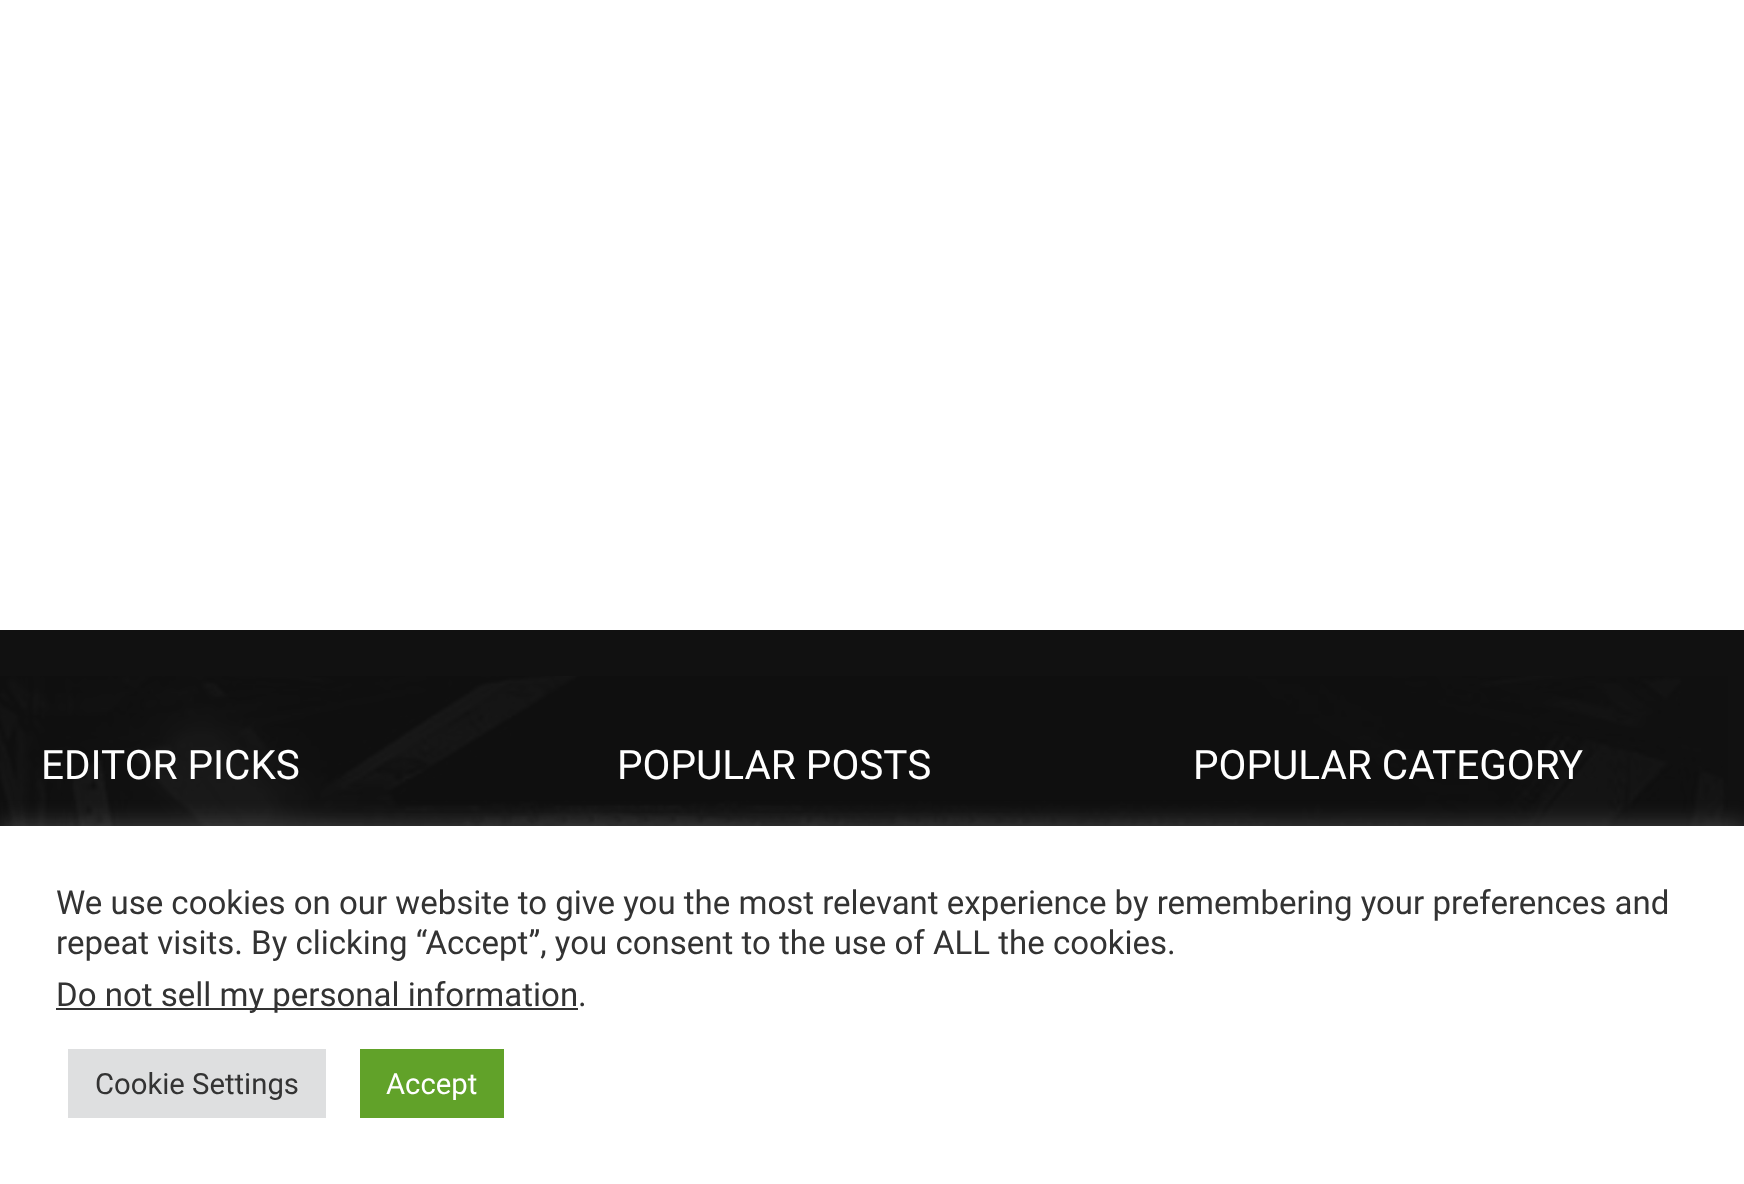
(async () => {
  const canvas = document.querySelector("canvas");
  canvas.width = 1744;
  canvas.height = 1184;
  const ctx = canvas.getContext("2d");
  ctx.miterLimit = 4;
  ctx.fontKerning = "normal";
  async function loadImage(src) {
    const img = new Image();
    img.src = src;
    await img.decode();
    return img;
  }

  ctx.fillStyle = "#ffffff";
  ctx.fillRect(0, 0, 1744, 1184);
  ctx.fillStyle = "#111111";
  ctx.fillRect(0, 630, 1744, 196);
  ctx.drawImage(await loadImage("img/1.png"), 0, 676, 1728, 150);
  ctx.fillStyle = "rgba(172, 171, 171, 0.3)";
  ctx.filter = "blur(11px)";
  ctx.beginPath();
  ctx.rect(0, 824, 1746, 360);
  ctx.fill();
  ctx.filter = "none";
  for (const [x, y, w, h, color] of [
    [0, 826, 1744, 358, "#ffffff"],
    [56, 1008, 522, 2, "#333333"],
    [68, 1049, 258, 69, "#dedfe0"],
    [360, 1049, 144, 69, "#61a229"],
  ]) {
    ctx.fillStyle = color;
    ctx.fillRect(x, y, w, h);
  }
  ctx.font = "40.5px Roboto";
  ctx.fillStyle = "#ffffff";
  for (const [text, x, y] of [
    ["EDITOR PICKS", 41, 779],
    ["POPULAR POSTS", 617, 779],
    ["POPULAR CATEGORY", 1193, 779],
  ]) {
    ctx.fillText(text, x, y);
  }
  ctx.font = "33px Roboto";
  ctx.fillStyle = "#333333";
  for (const [text, x, y] of [
    ["We use cookies on our website to give you the most relevant experience by remembering your preferences and", 56, 914],
    ["repeat visits. By clicking “Accept”, you consent to the use of ALL the cookies.", 56, 954],
    ["Do not sell my personal information", 56, 1006],
    [".", 578, 1006],
  ]) {
    ctx.fillText(text, x, y);
  }
  ctx.font = "29.25px Roboto";
  ctx.fillText("Cookie Settings", 95, 1094);
  ctx.fillStyle = "#ffffff";
  ctx.fillText("Accept", 386, 1094);
})();
